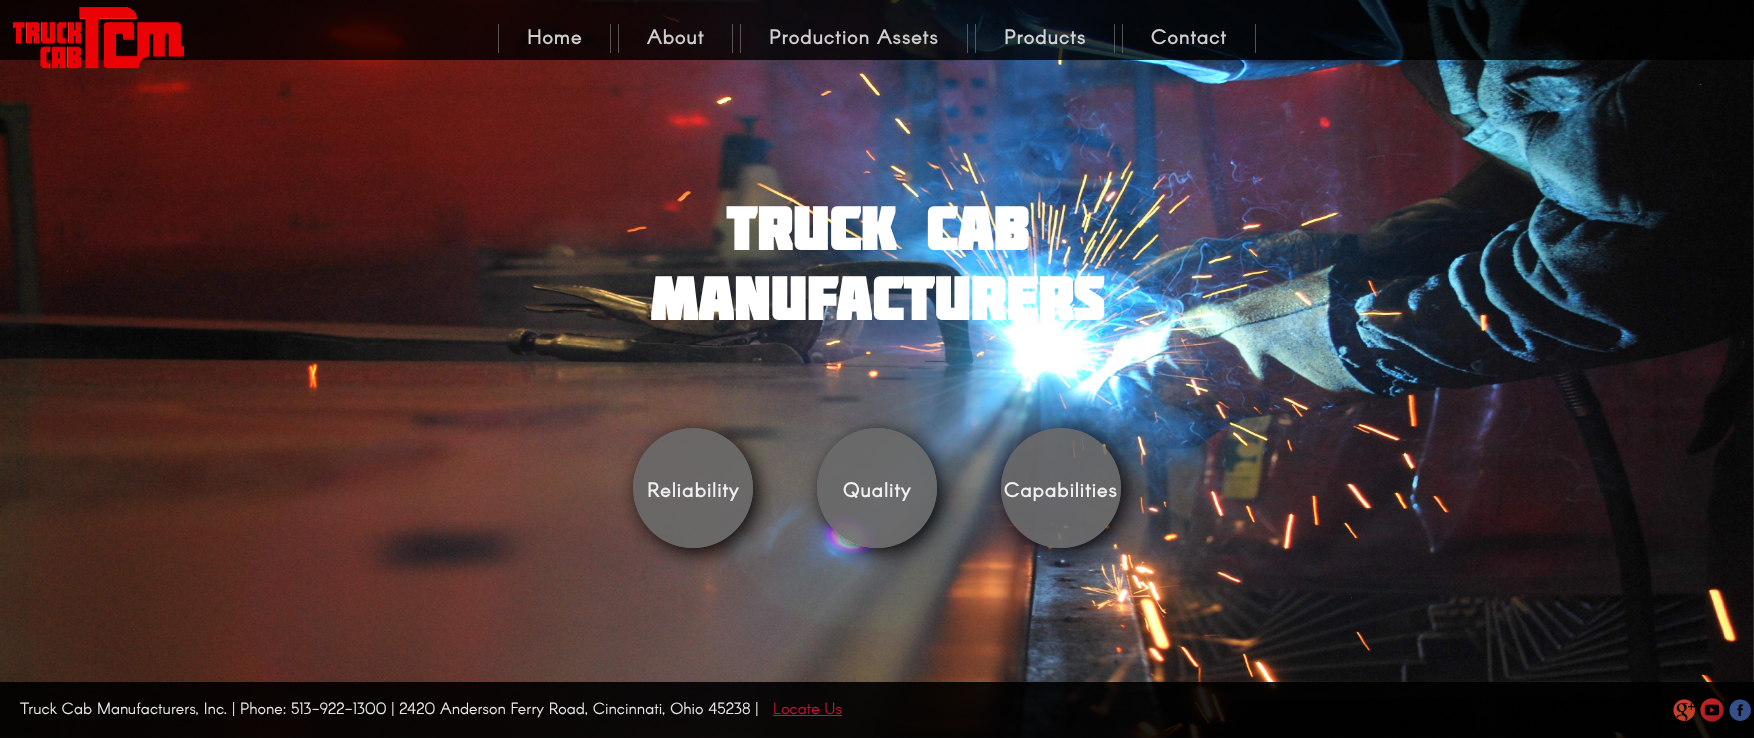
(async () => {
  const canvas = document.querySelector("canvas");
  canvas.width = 1754;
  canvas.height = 738;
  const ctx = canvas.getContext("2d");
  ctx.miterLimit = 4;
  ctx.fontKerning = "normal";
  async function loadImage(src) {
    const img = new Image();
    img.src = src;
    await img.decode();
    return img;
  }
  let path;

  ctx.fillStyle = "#ffffff";
  ctx.fillRect(0, 0, 1754, 738);
  ctx.drawImage(await loadImage("img/1.png"), 0, 0, 1754, 738);
  ctx.fillStyle = "rgba(0, 0, 0, 0.8)";
  ctx.fillRect(0, 0, 1754, 60);
  ctx.drawImage(await loadImage("img/2.png"), 13, 7, 171, 62);
  for (const [x, y, w, h, color] of [
    [610, 24, 1, 29, "rgba(105, 105, 105, 0.8)"],
    [498, 24, 1, 29, "#595555"],
    [732, 24, 1, 29, "rgba(105, 105, 105, 0.8)"],
    [618, 24, 1, 29, "#585555"],
    [967, 24, 1, 29, "rgba(105, 105, 105, 0.8)"],
    [740, 24, 1, 29, "rgba(105, 105, 105, 0.8)"],
    [1114, 24, 1, 29, "rgba(105, 105, 105, 0.8)"],
    [975, 24, 1, 29, "rgba(105, 105, 105, 0.8)"],
    [1255, 24, 1, 29, "rgba(105, 105, 105, 0.8)"],
    [1122, 24, 1, 29, "rgba(105, 105, 105, 0.8)"],
  ]) {
    ctx.fillStyle = color;
    ctx.fillRect(x, y, w, h);
  }
  ctx.save();
  path = new Path2D("M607 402H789V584H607ZM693 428C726 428 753 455 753 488C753 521 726 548 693 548C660 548 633 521 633 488C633 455 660 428 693 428Z");
  ctx.clip(path, "evenodd");
  ctx.fillStyle = "rgba(0, 0, 0, 0.9)";
  ctx.filter = "blur(10px)";
  ctx.beginPath();
  ctx.roundRect(638, 433, 120, 120, 60);
  ctx.fill();
  ctx.filter = "none";
  ctx.restore();
  ctx.fillStyle = "rgba(105, 105, 105, 0.9)";
  ctx.beginPath();
  ctx.arc(693, 488, 60, 0, Math.PI * 2);
  ctx.fill();
  ctx.save();
  path = new Path2D("M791 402H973V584H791ZM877 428C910 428 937 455 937 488C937 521 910 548 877 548C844 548 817 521 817 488C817 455 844 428 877 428Z");
  ctx.clip(path, "evenodd");
  ctx.fillStyle = "rgba(0, 0, 0, 0.9)";
  ctx.filter = "blur(10px)";
  ctx.beginPath();
  ctx.roundRect(822, 433, 120, 120, 60);
  ctx.fill();
  ctx.filter = "none";
  ctx.restore();
  ctx.beginPath();
  ctx.arc(877, 488, 60, 0, Math.PI * 2);
  ctx.fill();
  ctx.save();
  path = new Path2D("M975 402H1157V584H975ZM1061 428C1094 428 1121 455 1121 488C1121 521 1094 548 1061 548C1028 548 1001 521 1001 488C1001 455 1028 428 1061 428Z");
  ctx.clip(path, "evenodd");
  ctx.fillStyle = "rgba(0, 0, 0, 0.9)";
  ctx.filter = "blur(10px)";
  ctx.beginPath();
  ctx.roundRect(1006, 433, 120, 120, 60);
  ctx.fill();
  ctx.filter = "none";
  ctx.restore();
  ctx.beginPath();
  ctx.arc(1061, 488, 60, 0, Math.PI * 2);
  ctx.fill();
  ctx.fillStyle = "rgba(0, 0, 0, 0.9)";
  ctx.fillRect(0, 682, 1754, 56);
  ctx.fillStyle = "#c71337";
  ctx.fillRect(773, 715, 69, 1);
  ctx.drawImage(await loadImage("img/3.png"), 1673, 699, 22, 22);
  ctx.drawImage(await loadImage("img/4.png"), 1700, 698, 24, 24);
  ctx.drawImage(await loadImage("img/5.png"), 1729, 699, 22, 22);
  ctx.letterSpacing = "1px";
  ctx.font = "bold 20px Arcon";
  ctx.fillStyle = "#cfcdcd";
  for (const [text, x, y] of [
    ["Home", 527, 44],
    ["About", 647, 44],
    ["Production Assets", 769, 44],
  ]) {
    ctx.fillText(text, x, y);
  }
  ctx.fillStyle = "#d1d3d5";
  ctx.fillText("Products", 1004, 44);
  ctx.fillStyle = "#cfcdcd";
  ctx.fillText("Contact", 1151, 44);
  ctx.letterSpacing = "0px";
  ctx.font = "bold 60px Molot";
  ctx.fillStyle = "#ffffff";
  ctx.fillText("Truck Cab", 726, 250);
  ctx.fillText("Manufacturers", 650, 320);
  ctx.letterSpacing = "1px";
  ctx.font = "bold 20px Arcon";
  ctx.fillStyle = "#f0f0f0";
  for (const [text, x, y] of [
    ["Reliability", 647, 497],
    ["Quality", 843, 497],
    ["Capabilities", 1004, 497],
  ]) {
    ctx.fillText(text, x, y);
  }
  ctx.letterSpacing = "0px";
  ctx.font = "16px Arcon";
  ctx.fillStyle = "#e6e6e6";
  ctx.fillText("Truck Cab Manufacturers, Inc. | Phone: 513-922-1300 | 2420 Anderson Ferry Road, Cincinnati, Ohio 45238 |", 20, 714);
  ctx.fillStyle = "#c71337";
  ctx.fillText("Locate Us", 773, 714);
})();
